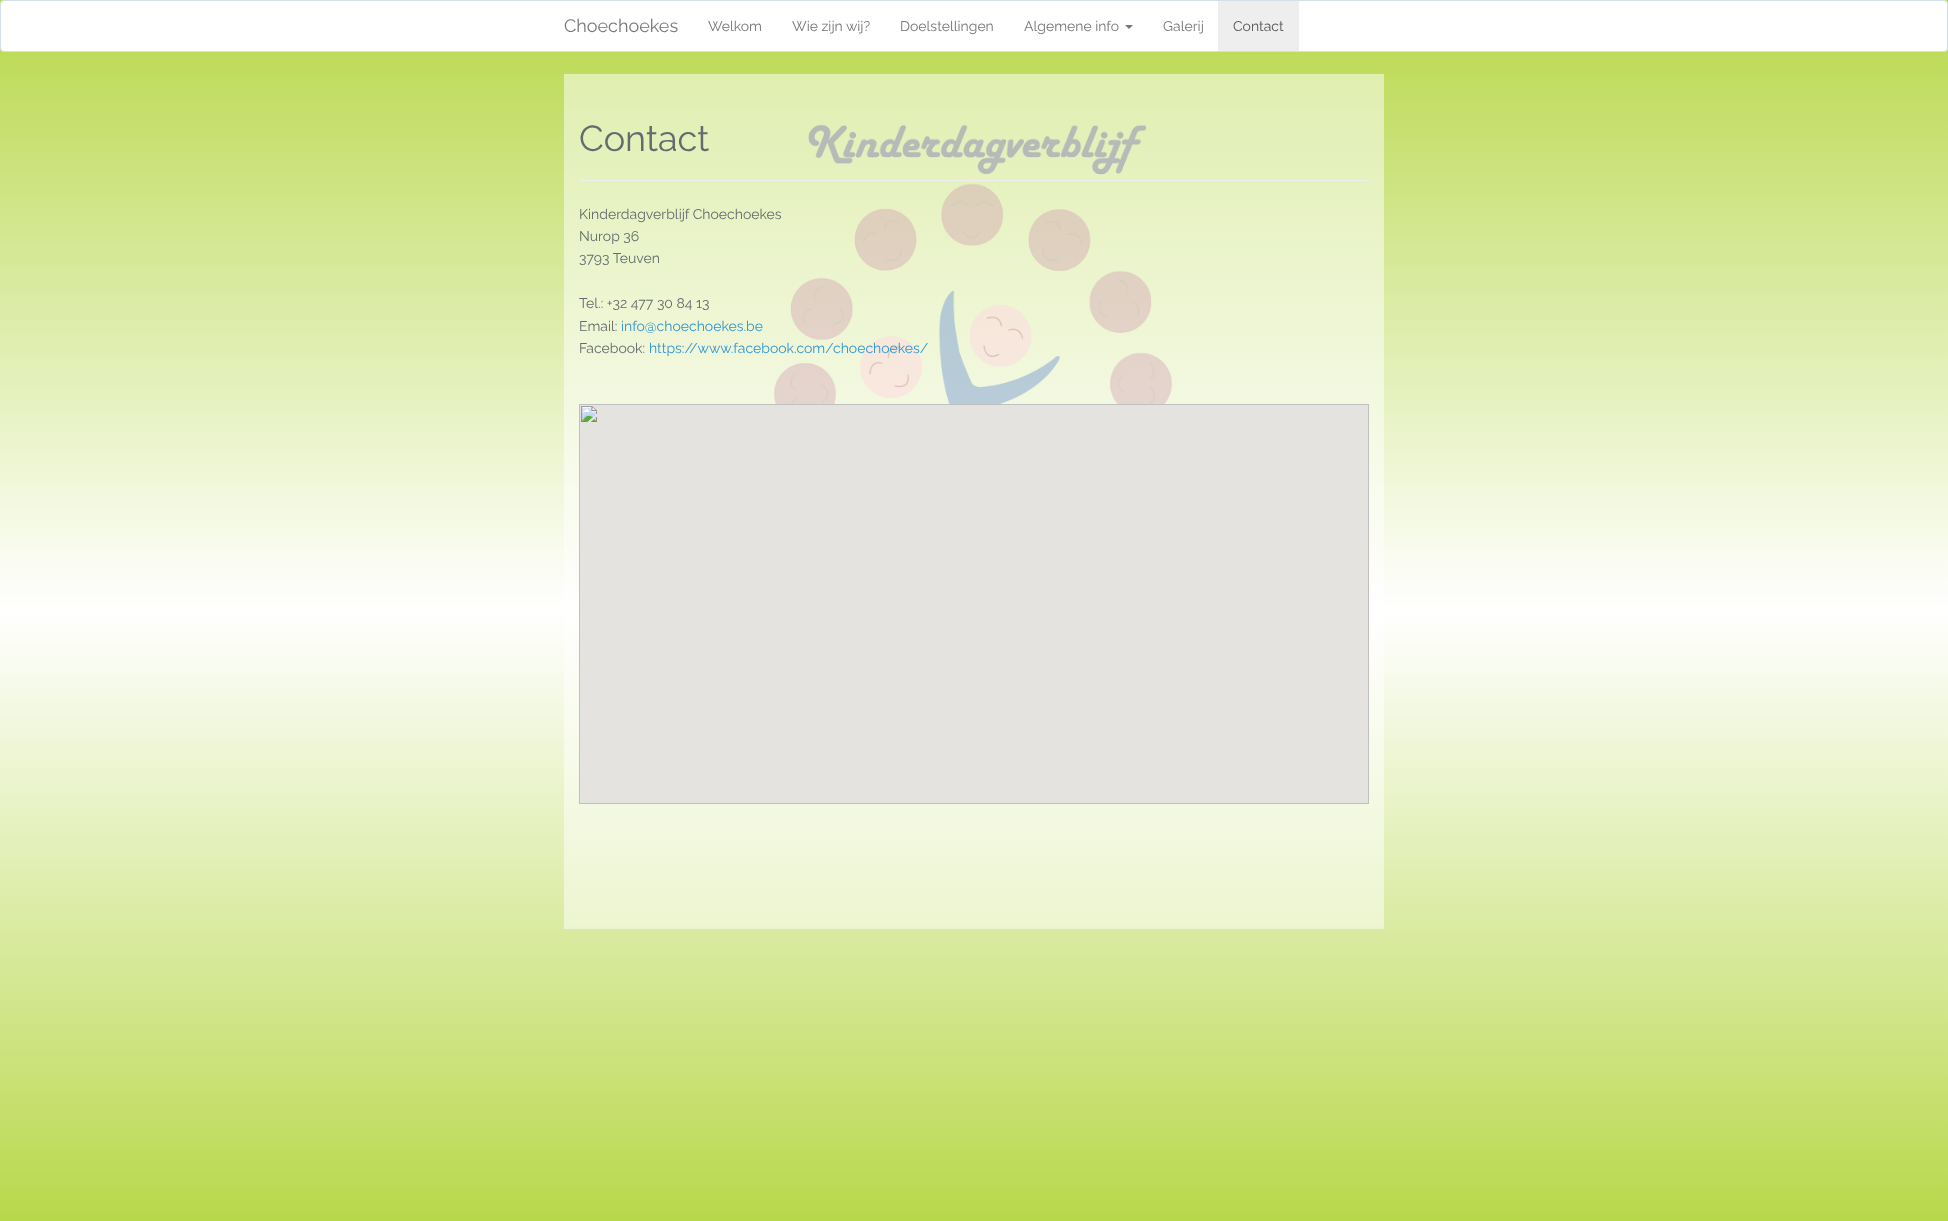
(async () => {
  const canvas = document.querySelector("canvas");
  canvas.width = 1948;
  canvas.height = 1221;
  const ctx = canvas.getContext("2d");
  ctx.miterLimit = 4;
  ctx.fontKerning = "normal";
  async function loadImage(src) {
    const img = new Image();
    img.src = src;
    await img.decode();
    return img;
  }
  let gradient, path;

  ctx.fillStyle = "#ffffff";
  ctx.fillRect(0, 0, 1948, 1221);
  gradient = ctx.createLinearGradient(974, 0, 974, 1221);
  gradient.addColorStop(0, "#b8d84b");
  gradient.addColorStop(0.5, "#ffffff");
  gradient.addColorStop(1, "#b8d84b");
  ctx.fillStyle = gradient;
  ctx.fillRect(0, 0, 1948, 1221);
  gradient = ctx.createLinearGradient(974, 0, 974, 1221);
  gradient.addColorStop(0, "#dceca5");
  gradient.addColorStop(0.5, "#ffffff");
  gradient.addColorStop(1, "#dceca5");
  ctx.fillStyle = gradient;
  ctx.fillRect(564, 74, 820, 855);
  ctx.fillStyle = "#ffffff";
  ctx.beginPath();
  ctx.roundRect(0.5, 0.5, 1947, 51, 3.5);
  ctx.fill();
  ctx.strokeStyle = "#d3e0e9";
  ctx.stroke();
  ctx.fillStyle = "#777777";
  path = new Path2D("M1125 25H1133L1129 29Z");
  ctx.fill(path);
  ctx.fillStyle = "#eeeeee";
  ctx.fillRect(1218, 1, 81, 50);
  ctx.drawImage(await loadImage("img/1.png"), 774, 124, 398, 280);
  ctx.fillRect(579, 180, 790, 1);
  ctx.drawImage(await loadImage("img/2.png"), 579, 404, 790, 400);
  ctx.font = "18px Raleway";
  ctx.fillStyle = "#777777";
  ctx.fillText("Choechoekes", 564, 32);
  ctx.font = "14px Raleway";
  for (const [text, x, y] of [
    ["Welkom", 708, 31],
    ["Wie zijn wij?", 792, 31],
    ["Doelstellingen", 900, 31],
    ["Algemene info", 1024, 31],
    ["Galerij", 1163, 31],
  ]) {
    ctx.fillText(text, x, y);
  }
  ctx.fillStyle = "#555555";
  ctx.fillText("Contact", 1233, 31);
  ctx.font = "36px Raleway";
  ctx.fillStyle = "#636b6f";
  ctx.fillText("Contact", 579, 151);
  ctx.font = "14px Raleway";
  for (const [text, x, y] of [
    ["Kinderdagverblijf Choechoekes", 579, 219],
    ["Nurop 36", 579, 241],
    ["3793 Teuven", 579, 263],
    ["Tel.: +32 477 30 84 13", 579, 308],
    ["Email:", 579, 331],
  ]) {
    ctx.fillText(text, x, y);
  }
  ctx.fillStyle = "#3097d1";
  ctx.fillText("info@choechoekes.be", 621, 331);
  ctx.fillStyle = "#636b6f";
  ctx.fillText("Facebook:", 579, 353);
  ctx.fillStyle = "#3097d1";
  ctx.fillText("https://www.facebook.com/choechoekes/", 649, 353);
})();
